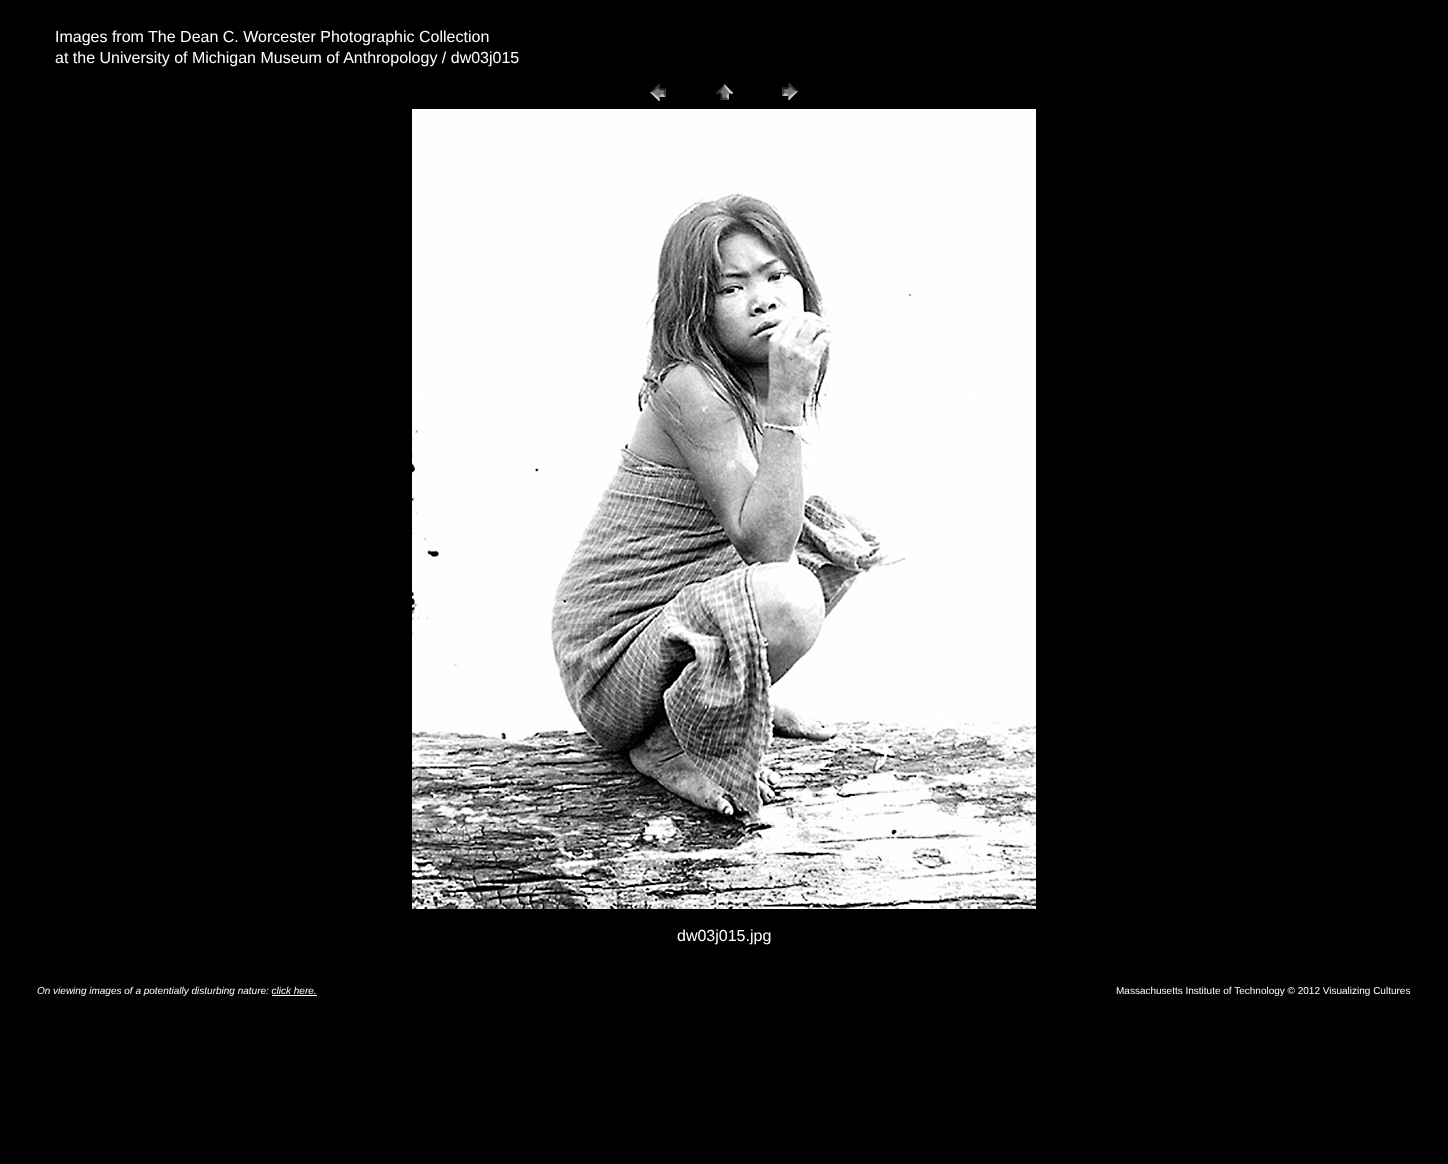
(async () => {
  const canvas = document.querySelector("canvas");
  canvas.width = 1448;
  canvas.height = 1164;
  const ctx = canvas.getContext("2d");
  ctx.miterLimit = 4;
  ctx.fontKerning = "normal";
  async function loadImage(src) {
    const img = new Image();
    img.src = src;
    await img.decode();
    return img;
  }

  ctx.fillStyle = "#000000";
  ctx.fillRect(0, 0, 1448, 1164);
  ctx.drawImage(await loadImage("img/1.png"), 650, 84, 16, 17);
  ctx.drawImage(await loadImage("img/2.png"), 716, 84, 17, 16);
  ctx.drawImage(await loadImage("img/3.png"), 782, 83, 16, 17);
  ctx.drawImage(await loadImage("img/4.png"), 412, 109, 624, 800);
  ctx.fillStyle = "#ffffff";
  ctx.fillRect(272, 995, 45, 1);
  ctx.font = "16px Liberation Sans";
  for (const [text, x, y] of [
    ["Images from The Dean C. Worcester Photographic Collection", 55, 42],
    ["at the University of Michigan Museum of Anthropology / dw03j015", 55, 63],
    ["dw03j015.jpg", 677, 941],
  ]) {
    ctx.fillText(text, x, y);
  }
  ctx.font = "italic 10px Liberation Sans";
  ctx.fillText("On viewing images of a potentially disturbing nature: click here.", 37, 994);
  ctx.font = "10px Liberation Sans";
  ctx.fillText("Massachusetts Institute of Technology © 2012 Visualizing Cultures", 1116, 994);
})();
